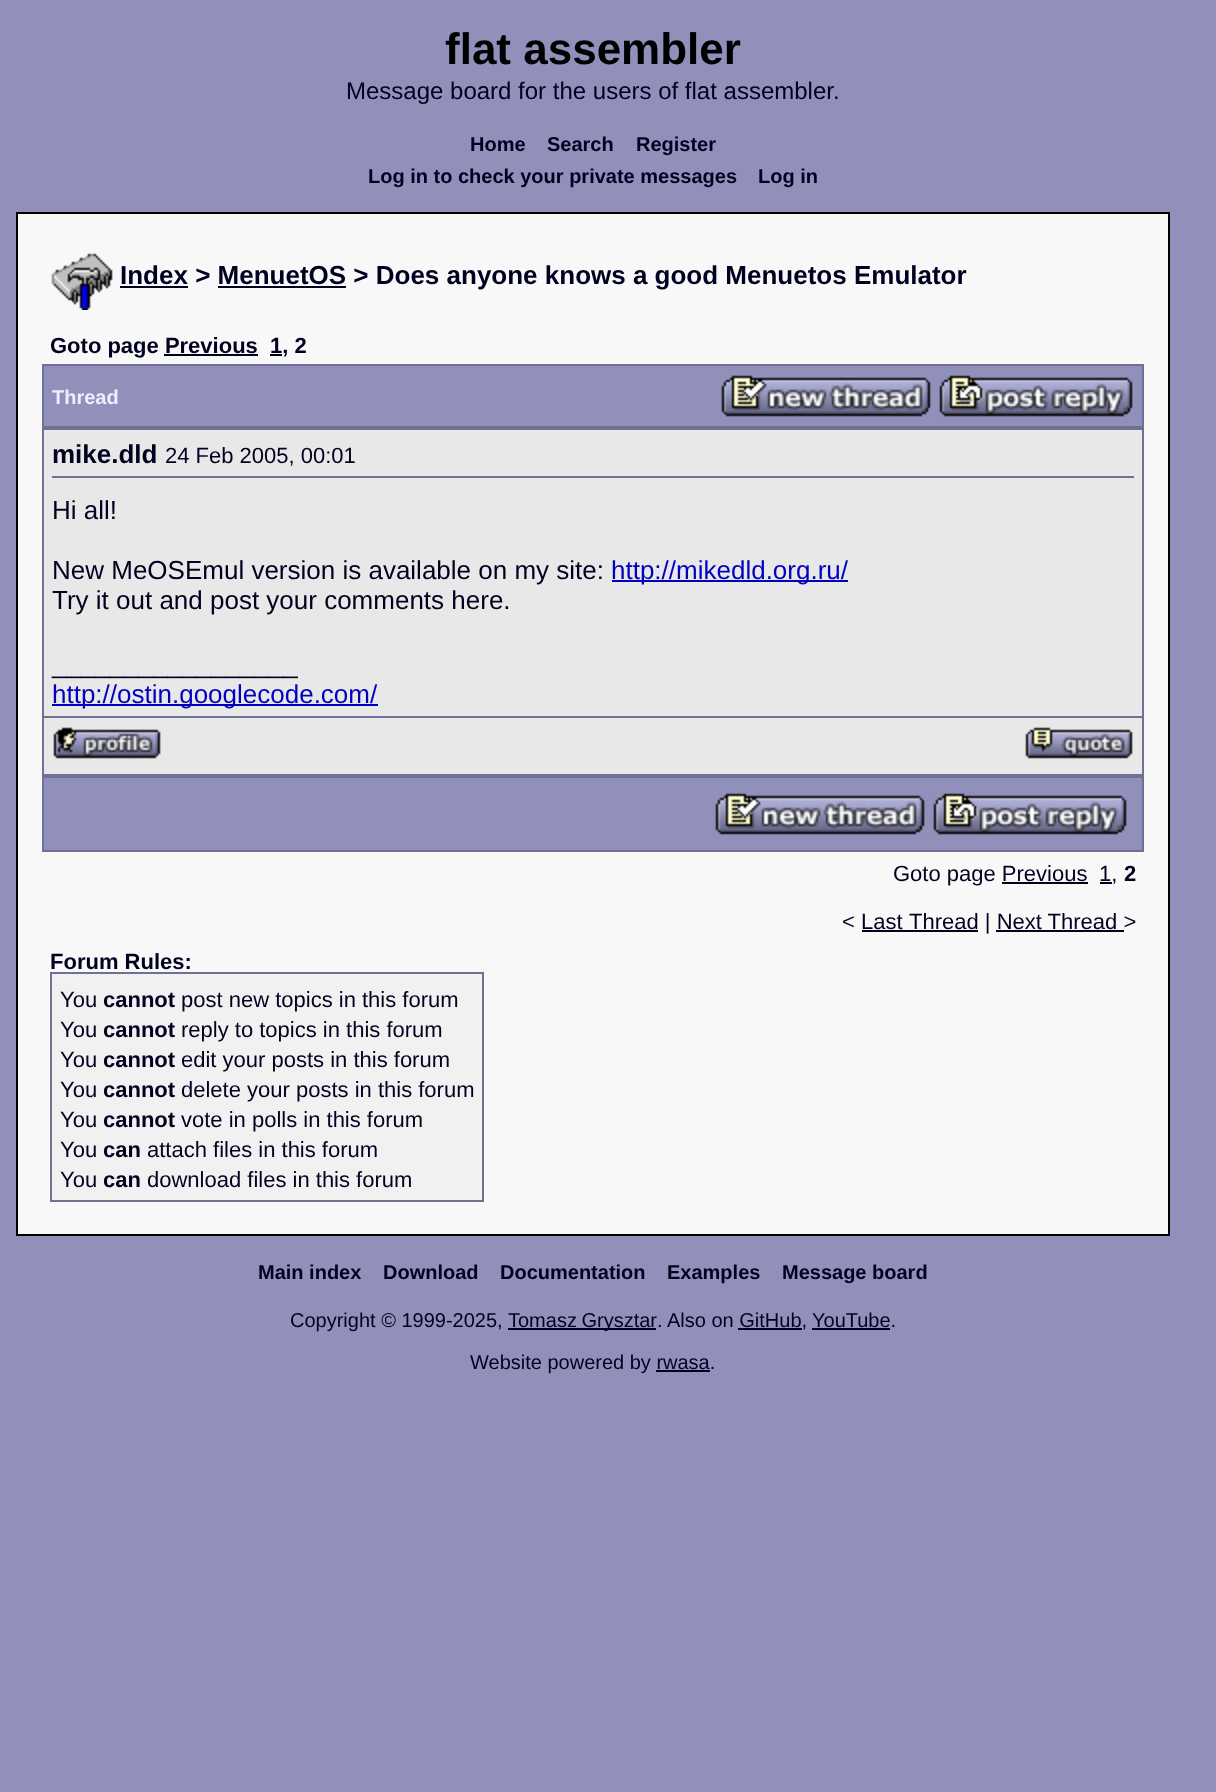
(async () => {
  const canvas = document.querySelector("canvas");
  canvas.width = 1216;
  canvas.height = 1792;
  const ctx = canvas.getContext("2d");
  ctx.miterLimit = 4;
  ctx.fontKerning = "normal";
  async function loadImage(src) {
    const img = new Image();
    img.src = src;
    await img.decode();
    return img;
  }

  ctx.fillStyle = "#9090bb";
  ctx.fillRect(0, 0, 1216, 1792);
  ctx.fillStyle = "#f8f8f8";
  ctx.beginPath();
  ctx.rect(17, 213, 1152, 1022);
  ctx.fill();
  ctx.strokeStyle = "#000000";
  ctx.lineWidth = 2;
  ctx.stroke();
  ctx.drawImage(await loadImage("img/1.png"), 51, 253, 62, 57);
  for (const [x, y, w, h, color] of [
    [120, 286, 68, 2, "#000020"],
    [218, 286, 128, 2, "#000020"],
    [164, 354, 94, 2, "#000020"],
    [270, 354, 12, 2, "#000020"],
    [42, 364, 1102, 2, "#707096"],
    [1142, 364, 2, 64, "#707096"],
    [42, 426, 1102, 4, "#707096"],
    [42, 364, 2, 64, "#707096"],
    [44, 366, 1098, 60, "#9090bb"],
  ]) {
    ctx.fillStyle = color;
    ctx.fillRect(x, y, w, h);
  }
  ctx.drawImage(await loadImage("img/2.png"), 721, 375, 210, 42);
  ctx.drawImage(await loadImage("img/3.png"), 939, 375, 194, 42);
  for (const [x, y, w, h, color] of [
    [1142, 428, 2, 348, "#707096"],
    [42, 774, 1102, 4, "#707096"],
    [42, 428, 2, 348, "#707096"],
    [44, 430, 1098, 286, "#e8e8e8"],
    [52, 476, 1082, 2, "#707096"],
    [612, 580, 236, 2, "#0000c0"],
    [52, 704, 326, 2, "#0000c0"],
    [42, 716, 1102, 2, "#707096"],
    [44, 718, 1098, 56, "#e8e8e8"],
  ]) {
    ctx.fillStyle = color;
    ctx.fillRect(x, y, w, h);
  }
  ctx.drawImage(await loadImage("img/4.png"), 53, 727, 108, 32);
  ctx.drawImage(await loadImage("img/5.png"), 1025, 727, 108, 32);
  for (const [x, y, w, h, color] of [
    [1142, 776, 2, 76, "#707096"],
    [42, 850, 1102, 2, "#707096"],
    [42, 776, 2, 76, "#707096"],
    [44, 778, 1098, 72, "#9090bb"],
  ]) {
    ctx.fillStyle = color;
    ctx.fillRect(x, y, w, h);
  }
  ctx.drawImage(await loadImage("img/2.png"), 715, 793, 210, 42);
  ctx.drawImage(await loadImage("img/3.png"), 933, 793, 194, 42);
  for (const [x, y, w, h, color] of [
    [1002, 882, 86, 2, "#000020"],
    [1100, 882, 12, 2, "#000020"],
    [862, 930, 116, 2, "#000020"],
    [996, 930, 128, 2, "#000020"],
    [50, 972, 434, 2, "#707096"],
    [482, 972, 2, 230, "#707096"],
    [50, 1200, 434, 2, "#707096"],
    [50, 972, 2, 230, "#707096"],
    [52, 974, 430, 226, "#f1f1f1"],
    [508, 1328, 148, 2, "#000020"],
    [812, 1328, 78, 2, "#000020"],
    [738, 1328, 64, 2, "#000020"],
    [656, 1370, 54, 2, "#000020"],
  ]) {
    ctx.fillStyle = color;
    ctx.fillRect(x, y, w, h);
  }
  ctx.font = "bold 44px Liberation Sans";
  ctx.fillStyle = "#000000";
  ctx.fillText("flat assembler", 445, 64);
  ctx.font = "24px Liberation Sans";
  ctx.fillStyle = "#000020";
  ctx.fillText("Message board for the users of flat assembler.", 346, 99);
  ctx.font = "bold 20px Liberation Sans";
  for (const [text, x, y] of [
    ["Home", 470, 151],
    ["Search", 547, 151],
    ["Register", 636, 151],
    ["Log in to check your private messages", 368, 183],
    ["Log in", 758, 183],
  ]) {
    ctx.fillText(text, x, y);
  }
  ctx.font = "bold 26px Liberation Sans";
  ctx.fillText("Index > MenuetOS > Does anyone knows a good Menuetos Emulator", 120, 284);
  ctx.font = "bold 22px Liberation Sans";
  ctx.fillText("Goto page Previous", 50, 353);
  ctx.fillText("1, 2", 270, 353);
  ctx.font = "bold 20px Liberation Sans";
  ctx.fillStyle = "#eeeeff";
  ctx.fillText("Thread", 52, 404);
  ctx.font = "bold 26px Liberation Sans";
  ctx.fillStyle = "#000020";
  ctx.fillText("mike.dld", 52, 463);
  ctx.font = "22px Liberation Sans";
  ctx.fillText("24 Feb 2005, 00:01", 165, 463);
  ctx.font = "26px Liberation Sans";
  ctx.fillText("Hi all!", 52, 519);
  ctx.fillText("New MeOSEmul version is available on my site:", 52, 579);
  ctx.fillStyle = "#0000c0";
  ctx.fillText("http://mikedld.org.ru/", 611, 579);
  ctx.fillStyle = "#000020";
  ctx.fillText("Try it out and post your comments here.", 52, 609);
  ctx.fillText("_________________", 52, 673);
  ctx.fillStyle = "#0000c0";
  ctx.fillText("http://ostin.googlecode.com/", 52, 703);
  ctx.font = "22px Liberation Sans";
  ctx.fillStyle = "#000020";
  ctx.fillText("Goto page Previous", 893, 881);
  ctx.fillText("1,", 1099, 881);
  ctx.font = "bold 22px Liberation Sans";
  ctx.fillText("2", 1124, 881);
  ctx.font = "22px Liberation Sans";
  ctx.fillText("< Last", 842, 929);
  ctx.fillText("Thread | Next Thread >", 909, 929);
  ctx.font = "bold 22px Liberation Sans";
  ctx.fillText("Forum Rules:", 50, 969);
  ctx.font = "22px Liberation Sans";
  ctx.fillText("You", 60, 1007);
  ctx.font = "bold 22px Liberation Sans";
  ctx.fillText("cannot", 103, 1007);
  ctx.font = "22px Liberation Sans";
  ctx.fillText("post new topics in this forum", 181, 1007);
  ctx.fillText("You", 60, 1037);
  ctx.font = "bold 22px Liberation Sans";
  ctx.fillText("cannot", 103, 1037);
  ctx.font = "22px Liberation Sans";
  ctx.fillText("reply to topics in this forum", 181, 1037);
  ctx.fillText("You", 60, 1067);
  ctx.font = "bold 22px Liberation Sans";
  ctx.fillText("cannot", 103, 1067);
  ctx.font = "22px Liberation Sans";
  ctx.fillText("edit your posts in this forum", 181, 1067);
  ctx.fillText("You", 60, 1097);
  ctx.font = "bold 22px Liberation Sans";
  ctx.fillText("cannot", 103, 1097);
  ctx.font = "22px Liberation Sans";
  ctx.fillText("delete your posts in this forum", 181, 1097);
  ctx.fillText("You", 60, 1127);
  ctx.font = "bold 22px Liberation Sans";
  ctx.fillText("cannot", 103, 1127);
  ctx.font = "22px Liberation Sans";
  ctx.fillText("vote in polls in this forum", 181, 1127);
  ctx.fillText("You", 60, 1157);
  ctx.font = "bold 22px Liberation Sans";
  ctx.fillText("can", 103, 1157);
  ctx.font = "22px Liberation Sans";
  ctx.fillText("attach files in this forum", 147, 1157);
  ctx.fillText("You", 60, 1187);
  ctx.font = "bold 22px Liberation Sans";
  ctx.fillText("can", 103, 1187);
  ctx.font = "22px Liberation Sans";
  ctx.fillText("download files in this forum", 147, 1187);
  ctx.font = "bold 20px Liberation Sans";
  for (const [text, x, y] of [
    ["Main index", 258, 1279],
    ["Download", 383, 1279],
    ["Documentation", 500, 1279],
    ["Examples", 667, 1279],
    ["Message board", 782, 1279],
  ]) {
    ctx.fillText(text, x, y);
  }
  ctx.font = "20px Liberation Sans";
  ctx.fillText("Copyright © 1999-2025,", 290, 1327);
  ctx.wordSpacing = "-1px";
  ctx.fillText("Tomasz Grysztar", 508, 1327);
  ctx.wordSpacing = "0px";
  for (const [text, x, y] of [
    [". Also on GitHub,", 657, 1327],
    ["YouTube.", 812, 1327],
    ["Website powered by rwasa.", 470, 1369],
  ]) {
    ctx.fillText(text, x, y);
  }
})();
